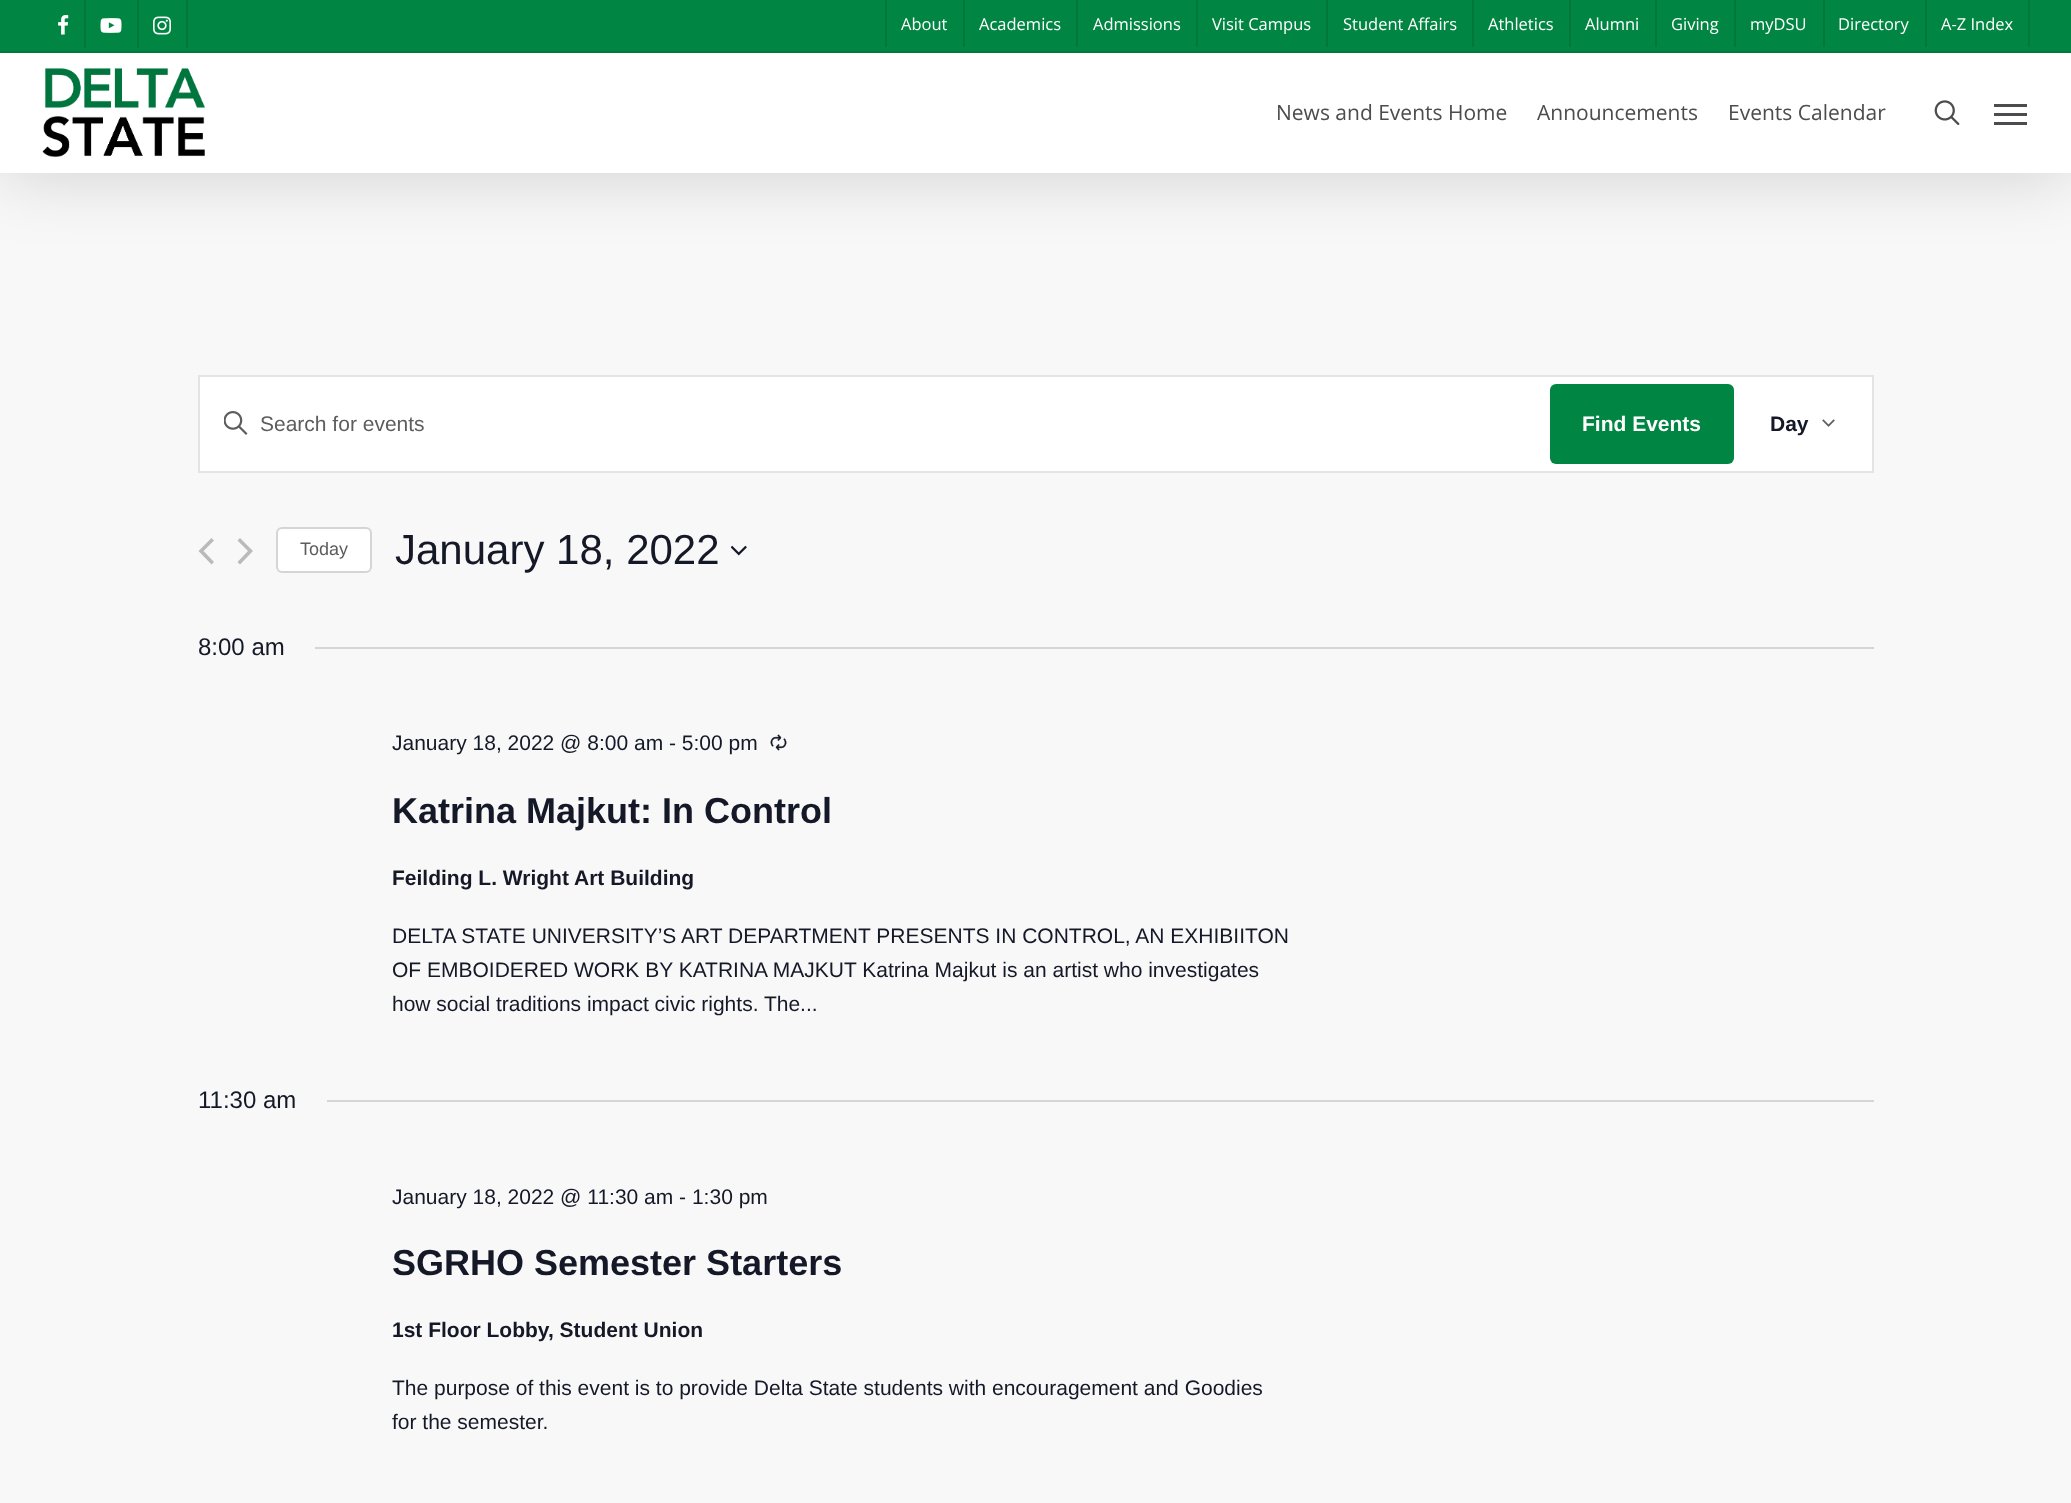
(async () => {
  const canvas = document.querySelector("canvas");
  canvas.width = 2071;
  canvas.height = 1503;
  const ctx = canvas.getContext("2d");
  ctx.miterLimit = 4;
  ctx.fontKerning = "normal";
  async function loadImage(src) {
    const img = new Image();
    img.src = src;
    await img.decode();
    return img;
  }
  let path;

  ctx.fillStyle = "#f8f8f8";
  ctx.fillRect(0, 0, 2071, 1503);
  ctx.fillStyle = "rgba(0, 0, 0, 0.15)";
  ctx.filter = "blur(34px)";
  ctx.beginPath();
  ctx.rect(0, 5, 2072, 172);
  ctx.fill();
  ctx.filter = "none";
  for (const [x, y, w, h, color] of [
    [0, 53, 2071, 120, "#ffffff"],
    [0, 0, 2071, 51, "#008542"],
    [0, 51, 2071, 2, "#00783b"],
  ]) {
    ctx.fillStyle = color;
    ctx.fillRect(x, y, w, h);
  }
  ctx.drawImage(await loadImage("img/1.png"), 58, 15, 11, 20);
  ctx.fillRect(84, 0, 2, 48);
  ctx.drawImage(await loadImage("img/2.png"), 100, 18, 22, 15);
  ctx.fillRect(186, 0, 2, 48);
  ctx.fillRect(137, 0, 2, 48);
  ctx.drawImage(await loadImage("img/3.png"), 153, 16, 18, 19);
  for (const [x, y, w, h, color] of [
    [885, 0, 2, 47, "#00783b"],
    [963, 0, 2, 47, "#00783b"],
    [1076, 0, 2, 47, "#00783b"],
    [1196, 0, 2, 47, "#00783b"],
    [1326, 0, 2, 47, "#00783b"],
    [1472, 0, 2, 47, "#00783b"],
    [1569, 0, 2, 47, "#00783b"],
    [1655, 0, 2, 47, "#00783b"],
    [1734, 0, 2, 47, "#00783b"],
    [1823, 0, 2, 47, "#00783b"],
    [2028, 0, 2, 47, "#00783b"],
    [1925, 0, 2, 47, "#00783b"],
  ]) {
    ctx.fillStyle = color;
    ctx.fillRect(x, y, w, h);
  }
  ctx.drawImage(await loadImage("img/4.png"), 42, 68, 163, 89);
  ctx.drawImage(await loadImage("img/5.png"), 1934, 100, 26, 25);
  for (const [x, y, w, h, color] of [
    [1994, 104, 33, 3, "#4c4c4e"],
    [1994, 122, 33, 3, "#4c4c4e"],
    [1994, 113, 33, 3, "#4c4c4e"],
  ]) {
    ctx.fillStyle = color;
    ctx.fillRect(x, y, w, h);
  }
  ctx.fillStyle = "#ffffff";
  ctx.beginPath();
  ctx.rect(199, 376, 1674, 96);
  ctx.fill();
  ctx.strokeStyle = "#e4e4e4";
  ctx.lineWidth = 2;
  ctx.stroke();
  ctx.drawImage(await loadImage("img/6.png"), 224, 411, 24, 24);
  ctx.fillStyle = "#008542";
  ctx.beginPath();
  ctx.roundRect(1550, 384, 184, 80, 6);
  ctx.fill();
  ctx.drawImage(await loadImage("img/7.png"), 1822, 419, 13, 8);
  ctx.fillStyle = "#bababa";
  path = new Path2D("M214 562L211.5 564.5L198.5 551L211.5 538L214 540.5L203.5 551ZM237.5 540.5L240 538L253 551L240 564.5L237.5 562L248 551Z");
  ctx.fill(path);
  ctx.fillStyle = "#ffffff";
  ctx.beginPath();
  ctx.roundRect(277, 528, 94, 44, 5);
  ctx.fill();
  ctx.strokeStyle = "#d5d5d5";
  ctx.stroke();
  ctx.drawImage(await loadImage("img/8.png"), 731, 545, 16, 11);
  ctx.fillStyle = "#d5d5d5";
  ctx.fillRect(315, 647, 1559, 2);
  ctx.drawImage(await loadImage("img/9.png"), 770, 734, 17, 17);
  ctx.fillRect(327, 1100, 1547, 2);
  ctx.font = "16.5px Open Sans";
  ctx.fillStyle = "#ffffff";
  for (const [text, x, y] of [
    ["About", 901, 30],
    ["Academics", 979, 30],
    ["Admissions", 1093, 30],
    ["Visit Campus", 1212, 30],
    ["Student Affairs", 1343, 30],
    ["Athletics", 1488, 30],
    ["Alumni", 1585, 30],
    ["Giving", 1671, 30],
    ["myDSU", 1750, 30],
    ["Directory", 1838, 30],
    ["A-Z Index", 1941, 30],
  ]) {
    ctx.fillText(text, x, y);
  }
  ctx.font = "21px Open Sans";
  ctx.fillStyle = "#4c4c4e";
  for (const [text, x, y] of [
    ["News and Events Home", 1276, 120],
    ["Announcements", 1537, 120],
    ["Events Calendar", 1728, 120],
  ]) {
    ctx.fillText(text, x, y);
  }
  ctx.font = "21px Liberation Sans";
  ctx.fillStyle = "#5d5d5d";
  ctx.fillText("Search for events", 260, 431);
  ctx.font = "bold 21px Liberation Sans";
  ctx.fillStyle = "#ffffff";
  ctx.fillText("Find Events", 1582, 431);
  ctx.fillStyle = "#141827";
  ctx.fillText("Day", 1770, 431);
  ctx.font = "18px Liberation Sans";
  ctx.fillStyle = "#5d5d5d";
  ctx.fillText("Today", 300, 555);
  ctx.font = "42px Liberation Sans";
  ctx.fillStyle = "#141827";
  ctx.fillText("January 18, 2022", 395, 564);
  ctx.font = "24px Liberation Sans";
  ctx.fillText("8:00 am", 198, 655);
  ctx.font = "21px Liberation Sans";
  ctx.fillText("January 18, 2022 @ 8:00 am - 5:00 pm", 392, 750);
  ctx.font = "bold 36px Liberation Sans";
  ctx.fillText("Katrina Majkut: In Control", 392, 823);
  ctx.font = "bold 21px Liberation Sans";
  ctx.fillText("Feilding L. Wright Art Building", 392, 885);
  ctx.font = "21px Liberation Sans";
  for (const [text, x, y] of [
    ["DELTA STATE UNIVERSITY’S ART DEPARTMENT PRESENTS IN CONTROL, AN EXHIBIITON", 392, 943],
    ["OF EMBOIDERED WORK BY KATRINA MAJKUT Katrina Majkut is an artist who investigates", 392, 977],
    ["how social traditions impact civic rights. The...", 392, 1011],
  ]) {
    ctx.fillText(text, x, y);
  }
  ctx.font = "24px Liberation Sans";
  ctx.fillText("11:30 am", 198, 1108);
  ctx.font = "21px Liberation Sans";
  ctx.fillText("January 18, 2022 @ 11:30 am - 1:30 pm", 392, 1204);
  ctx.font = "bold 36px Liberation Sans";
  ctx.fillText("SGRHO Semester Starters", 392, 1275);
  ctx.font = "bold 21px Liberation Sans";
  ctx.fillText("1st Floor Lobby, Student Union", 392, 1337);
  ctx.font = "21px Liberation Sans";
  ctx.fillText("The purpose of this event is to provide Delta State students with encouragement and Goodies", 392, 1395);
  ctx.fillText("for the semester.", 392, 1429);
})();
